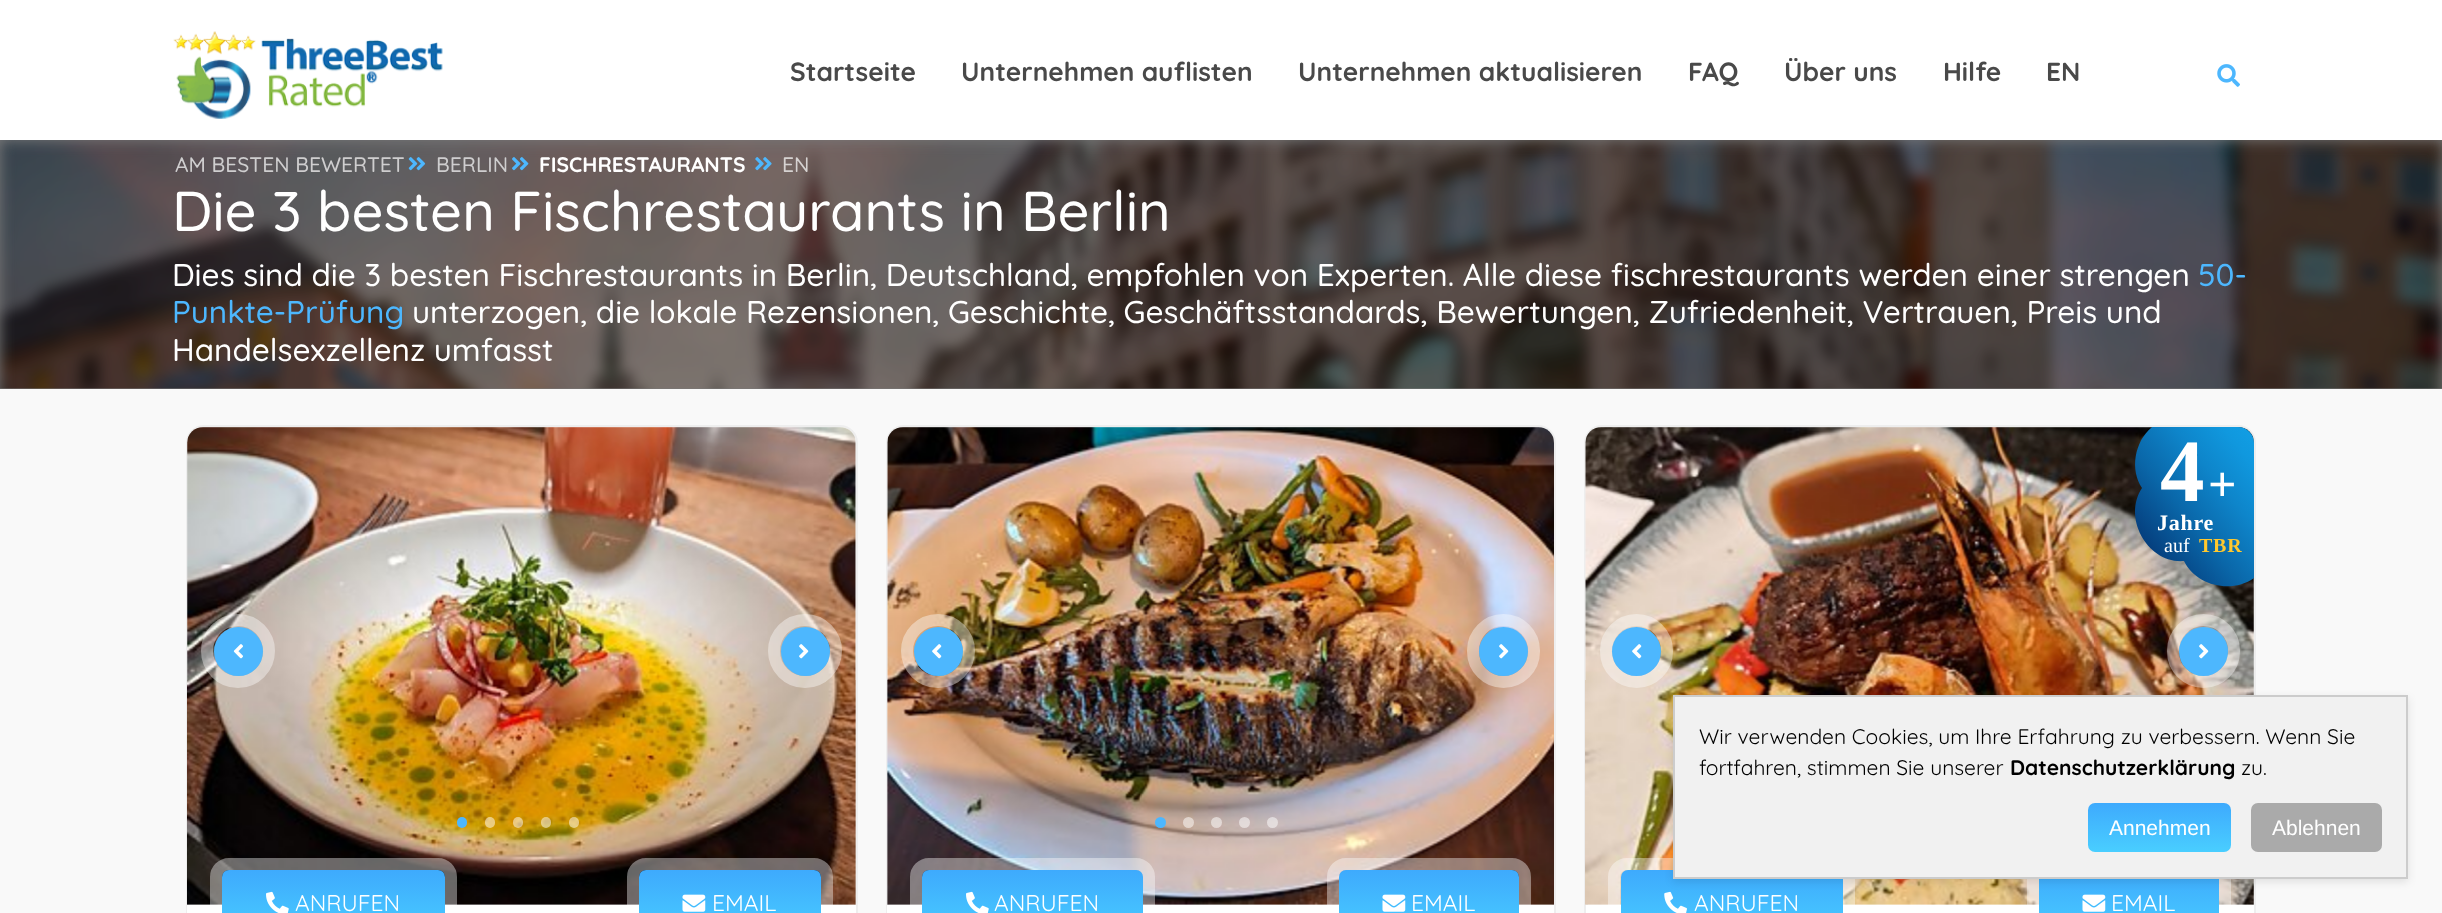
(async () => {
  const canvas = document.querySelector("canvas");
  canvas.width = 2442;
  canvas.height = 913;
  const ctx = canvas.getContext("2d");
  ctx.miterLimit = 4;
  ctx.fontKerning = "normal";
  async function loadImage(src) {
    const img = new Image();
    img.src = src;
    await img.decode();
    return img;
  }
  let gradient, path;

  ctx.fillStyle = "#ffffff";
  ctx.fillRect(0, 0, 2442, 913);
  ctx.drawImage(await loadImage("img/1.png"), 173, 31, 270, 88);
  ctx.drawImage(await loadImage("img/2.png"), 2217, 64, 23, 23);
  ctx.fillStyle = "#797979";
  ctx.fillRect(0, 140, 2442, 249);
  ctx.drawImage(await loadImage("img/3.png"), 0, 140, 2442, 249);
  ctx.drawImage(await loadImage("img/4.png"), 408, 157, 18, 14);
  ctx.drawImage(await loadImage("img/5.png"), 512, 157, 17, 14);
  ctx.drawImage(await loadImage("img/6.png"), 755, 157, 17, 14);
  ctx.fillStyle = "#f9f9f9";
  ctx.fillRect(0, 389, 2442, 524);
  ctx.beginPath();
  ctx.roundRect(187, 426, 670, 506, 17);
  ctx.strokeStyle = "#eeeeee";
  ctx.lineWidth = 2;
  ctx.stroke();
  ctx.fillStyle = "#ffffff";
  path = new Path2D("M203 427H840C849 427 856 434 856 443V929H187V443C187 434 194 427 203 427Z");
  ctx.fill(path);
  ctx.save();
  ctx.beginPath();
  ctx.roundRect(187, 427, 669, 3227, 16);
  ctx.clip();
  ctx.fillStyle = "#eeeeee";
  ctx.fillRect(854, 427, 2, 486);
  ctx.fillRect(187, 427, 2, 486);
  ctx.restore();
  ctx.drawImage(await loadImage("img/7.png"), 187, 427, 669, 478);
  ctx.fillStyle = "#4db7fe";
  ctx.beginPath();
  ctx.roundRect(457, 817, 10, 11, 5);
  ctx.fill();
  ctx.fillStyle = "rgba(255, 255, 255, 0.51)";
  ctx.beginPath();
  ctx.roundRect(485, 817, 10, 11, 5);
  ctx.fill();
  ctx.beginPath();
  ctx.roundRect(513, 817, 10, 11, 5);
  ctx.fill();
  ctx.beginPath();
  ctx.roundRect(541, 817, 10, 11, 5);
  ctx.fill();
  ctx.beginPath();
  ctx.roundRect(569, 817, 10, 11, 5);
  ctx.fill();
  ctx.beginPath();
  ctx.arc(238, 651, 31, 0, Math.PI * 2);
  ctx.strokeStyle = "rgba(255, 255, 255, 0.4)";
  ctx.lineWidth = 12;
  ctx.stroke();
  ctx.fillStyle = "#4db7fe";
  ctx.beginPath();
  ctx.arc(238.5, 651.5, 24.5, 0, Math.PI * 2);
  ctx.fill();
  ctx.drawImage(await loadImage("img/8.png"), 233, 644, 10, 15);
  ctx.beginPath();
  ctx.arc(805, 651, 31, 0, Math.PI * 2);
  ctx.stroke();
  ctx.beginPath();
  ctx.arc(805.5, 651.5, 24.5, 0, Math.PI * 2);
  ctx.fill();
  ctx.drawImage(await loadImage("img/9.png"), 799, 644, 10, 15);
  ctx.fillStyle = "#ffffff";
  ctx.fillRect(187, 905, 669, 8);
  ctx.beginPath();
  ctx.roundRect(216, 864, 235, 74, 13);
  ctx.stroke();
  gradient = ctx.createLinearGradient(333, 870, 333, 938);
  gradient.addColorStop(0, "#3eaafd");
  gradient.addColorStop(1, "#49ceff");
  ctx.fillStyle = gradient;
  ctx.beginPath();
  ctx.roundRect(222, 870, 223, 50, 7);
  ctx.fill();
  ctx.drawImage(await loadImage("img/10.png"), 266, 891, 23, 22);
  ctx.beginPath();
  ctx.roundRect(633, 864, 194, 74, 13);
  ctx.stroke();
  gradient = ctx.createLinearGradient(730, 870, 730, 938);
  gradient.addColorStop(0, "#3eaafd");
  gradient.addColorStop(1, "#49ceff");
  ctx.fillStyle = gradient;
  ctx.beginPath();
  ctx.roundRect(639, 870, 182, 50, 7);
  ctx.fill();
  ctx.drawImage(await loadImage("img/11.png"), 682, 894, 24, 18);
  ctx.beginPath();
  ctx.roundRect(887, 426, 668, 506, 17);
  ctx.strokeStyle = "#eeeeee";
  ctx.lineWidth = 2;
  ctx.stroke();
  ctx.fillStyle = "#ffffff";
  path = new Path2D("M903 427H1538C1547 427 1554 434 1554 443V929H887V443C887 434 894 427 903 427Z");
  ctx.fill(path);
  ctx.save();
  ctx.beginPath();
  ctx.roundRect(887, 427, 667, 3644, 16);
  ctx.clip();
  ctx.fillStyle = "#eeeeee";
  ctx.fillRect(1552, 427, 2, 486);
  ctx.fillRect(887, 427, 2, 486);
  ctx.restore();
  ctx.drawImage(await loadImage("img/12.png"), 887, 427, 667, 478);
  ctx.fillStyle = "#4db7fe";
  ctx.beginPath();
  ctx.arc(1160.5, 822.5, 5.5, 0, Math.PI * 2);
  ctx.fill();
  ctx.fillStyle = "rgba(255, 255, 255, 0.51)";
  ctx.beginPath();
  ctx.arc(1188.5, 822.5, 5.5, 0, Math.PI * 2);
  ctx.fill();
  ctx.beginPath();
  ctx.arc(1216.5, 822.5, 5.5, 0, Math.PI * 2);
  ctx.fill();
  ctx.beginPath();
  ctx.arc(1244.5, 822.5, 5.5, 0, Math.PI * 2);
  ctx.fill();
  ctx.beginPath();
  ctx.arc(1272.5, 822.5, 5.5, 0, Math.PI * 2);
  ctx.fill();
  ctx.beginPath();
  ctx.arc(938, 651, 31, 0, Math.PI * 2);
  ctx.strokeStyle = "rgba(255, 255, 255, 0.4)";
  ctx.lineWidth = 12;
  ctx.stroke();
  ctx.fillStyle = "#4db7fe";
  ctx.beginPath();
  ctx.arc(938.5, 651.5, 24.5, 0, Math.PI * 2);
  ctx.fill();
  ctx.drawImage(await loadImage("img/13.png"), 932, 644, 10, 15);
  ctx.beginPath();
  ctx.roundRect(1473, 620, 61, 62, 30.5);
  ctx.stroke();
  ctx.beginPath();
  ctx.arc(1503.5, 651.5, 24.5, 0, Math.PI * 2);
  ctx.fill();
  ctx.drawImage(await loadImage("img/9.png"), 1499, 644, 10, 15);
  ctx.fillStyle = "#ffffff";
  ctx.fillRect(887, 905, 667, 8);
  ctx.beginPath();
  ctx.roundRect(916, 864, 233, 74, 13);
  ctx.stroke();
  gradient = ctx.createLinearGradient(1033, 870, 1033, 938);
  gradient.addColorStop(0, "#3eaafd");
  gradient.addColorStop(1, "#49ceff");
  ctx.fillStyle = gradient;
  ctx.beginPath();
  ctx.roundRect(922, 870, 221, 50, 7);
  ctx.fill();
  ctx.drawImage(await loadImage("img/10.png"), 966, 891, 23, 22);
  ctx.beginPath();
  ctx.roundRect(1333, 864, 192, 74, 13);
  ctx.stroke();
  gradient = ctx.createLinearGradient(1429, 870, 1429, 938);
  gradient.addColorStop(0, "#3eaafd");
  gradient.addColorStop(1, "#49ceff");
  ctx.fillStyle = gradient;
  ctx.beginPath();
  ctx.roundRect(1339, 870, 180, 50, 7);
  ctx.fill();
  ctx.drawImage(await loadImage("img/11.png"), 1382, 894, 24, 18);
  ctx.beginPath();
  ctx.roundRect(1585, 426, 670, 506, 17);
  ctx.strokeStyle = "#eeeeee";
  ctx.lineWidth = 2;
  ctx.stroke();
  ctx.fillStyle = "#ffffff";
  path = new Path2D("M1602 427H2238C2247 427 2254 434 2254 443V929H1586V443C1586 434 1593 427 1602 427Z");
  ctx.fill(path);
  ctx.save();
  ctx.beginPath();
  ctx.roundRect(1586, 427, 668, 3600, 16);
  ctx.clip();
  ctx.fillStyle = "#eeeeee";
  ctx.fillRect(2252, 427, 2, 486);
  ctx.fillRect(1586, 427, 2, 486);
  ctx.restore();
  ctx.drawImage(await loadImage("img/14.png"), 1585, 427, 669, 478);
  gradient = ctx.createLinearGradient(2148, 546, 2271, 447);
  gradient.addColorStop(0, "#053f7e");
  gradient.addColorStop(0.31, "#0a67a9");
  gradient.addColorStop(0.6, "#0e85ca");
  gradient.addColorStop(0.84, "#1098de");
  gradient.addColorStop(1, "#119fe5");
  ctx.fillStyle = gradient;
  path = new Path2D("M2254 578V443C2254 434 2247 427 2238 427H2152C2134 442 2130 470 2142 488C2122 518 2148 564 2184 561C2196 586 2232 594 2254 578Z");
  ctx.fill(path);
  ctx.beginPath();
  ctx.roundRect(1606, 620, 61, 62, 30.5);
  ctx.strokeStyle = "rgba(255, 255, 255, 0.4)";
  ctx.lineWidth = 12;
  ctx.stroke();
  ctx.fillStyle = "#4db7fe";
  ctx.beginPath();
  ctx.arc(1636.5, 651.5, 24.5, 0, Math.PI * 2);
  ctx.fill();
  ctx.drawImage(await loadImage("img/13.png"), 1632, 644, 10, 15);
  ctx.beginPath();
  ctx.roundRect(2173, 620, 61, 62, 30.5);
  ctx.stroke();
  ctx.beginPath();
  ctx.arc(2203.5, 651.5, 24.5, 0, Math.PI * 2);
  ctx.fill();
  ctx.drawImage(await loadImage("img/9.png"), 2199, 644, 10, 15);
  ctx.fillStyle = "#ffffff";
  ctx.fillRect(1586, 905, 668, 8);
  ctx.beginPath();
  ctx.roundRect(1614, 864, 235, 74, 13);
  ctx.stroke();
  gradient = ctx.createLinearGradient(1732, 870, 1732, 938);
  gradient.addColorStop(0, "#3eaafd");
  gradient.addColorStop(1, "#49ceff");
  ctx.fillStyle = gradient;
  ctx.beginPath();
  ctx.roundRect(1621, 870, 222, 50, 7);
  ctx.fill();
  ctx.drawImage(await loadImage("img/15.png"), 1664, 891, 23, 22);
  ctx.strokeRect(2033, 864, 192, 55);
  gradient = ctx.createLinearGradient(2129, 870, 2129, 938);
  gradient.addColorStop(0, "#3eaafd");
  gradient.addColorStop(1, "#49ceff");
  ctx.fillStyle = gradient;
  ctx.fillRect(2039, 879, 180, 34);
  ctx.drawImage(await loadImage("img/11.png"), 2082, 894, 24, 18);
  ctx.fillStyle = "rgba(0, 0, 0, 0.1)";
  ctx.filter = "blur(4.5px)";
  ctx.beginPath();
  ctx.rect(1673, 698, 735, 184);
  ctx.fill();
  ctx.filter = "none";
  ctx.fillStyle = "#f1f1f1";
  ctx.beginPath();
  ctx.rect(1674, 696, 733, 182);
  ctx.fill();
  ctx.strokeStyle = "#cccccc";
  ctx.lineWidth = 2;
  ctx.stroke();
  gradient = ctx.createLinearGradient(2160, 803, 2160, 852);
  gradient.addColorStop(0, "#3eaafd");
  gradient.addColorStop(1, "#49ceff");
  ctx.fillStyle = gradient;
  ctx.beginPath();
  ctx.roundRect(2088, 803, 143, 49, 7);
  ctx.fill();
  ctx.fillStyle = "#aaaaaa";
  ctx.beginPath();
  ctx.roundRect(2251, 803, 131, 49, 7);
  ctx.fill();
  ctx.font = "bold 26.25px Quicksand";
  ctx.fillStyle = "#494949";
  for (const [text, x, y] of [
    ["Startseite", 790, 81],
    ["Unternehmen auflisten", 961, 81],
    ["Unternehmen aktualisieren", 1298, 81],
    ["FAQ", 1688, 81],
    ["Über uns", 1784, 81],
    ["Hilfe", 1943, 81],
    ["EN", 2046, 81],
  ]) {
    ctx.fillText(text, x, y);
  }
  ctx.font = "500 21px Quicksand";
  ctx.fillStyle = "#cfcecf";
  ctx.fillText("AM BESTEN BEWERTET", 175, 172);
  ctx.fillText("BERLIN", 436, 172);
  ctx.font = "bold 21px Quicksand";
  ctx.fillStyle = "#ffffff";
  ctx.fillText("FISCHRESTAURANTS", 539, 172);
  ctx.font = "500 21px Quicksand";
  ctx.fillStyle = "#d6d2d1";
  ctx.fillText("EN", 782, 172);
  ctx.font = "500 56px Quicksand";
  ctx.fillStyle = "#ffffff";
  ctx.fillText("Die 3 besten Fischrestaurants in Berlin", 172, 231);
  ctx.font = "500 31.5px Quicksand";
  ctx.fillText("Dies sind die 3 besten Fischrestaurants in Berlin, Deutschland, empfohlen von Experten. Alle diese fischrestaurants werden einer strengen", 172, 286);
  ctx.fillStyle = "#4db7fe";
  ctx.fillText("50-", 2198, 286);
  ctx.fillText("Punkte-Prüfung", 172, 323);
  ctx.fillStyle = "#ffffff";
  ctx.fillText("unterzogen, die lokale Rezensionen, Geschichte, Geschäftsstandards, Bewertungen, Zufriedenheit, Vertrauen, Preis und", 412, 323);
  ctx.fillText("Handelsexzellenz umfasst", 172, 361);
  ctx.font = "22.75px Quicksand";
  for (const [text, x, y] of [
    ["ANRUFEN", 295, 911],
    ["EMAIL", 712, 911],
    ["ANRUFEN", 994, 911],
    ["EMAIL", 1411, 911],
  ]) {
    ctx.fillText(text, x, y);
  }
  ctx.font = "bold 89px Liberation Serif";
  ctx.fillText("4", 2160, 501);
  ctx.font = "bold 50px Liberation Serif";
  ctx.fillText("+", 2208, 501);
  ctx.letterSpacing = "0.75px";
  ctx.font = "bold 22px Liberation Serif";
  ctx.fillText("Jahre", 2157, 530);
  ctx.letterSpacing = "0px";
  ctx.font = "20px Liberation Serif";
  ctx.fillText("auf", 2164, 552);
  ctx.letterSpacing = "0.75px";
  ctx.font = "bold 20px Liberation Serif";
  ctx.fillStyle = "#ffc82e";
  ctx.fillText("TBR", 2199, 552);
  ctx.letterSpacing = "0px";
  ctx.font = "22.75px Quicksand";
  ctx.fillStyle = "#ffffff";
  ctx.fillText("ANRUFEN", 1694, 911);
  ctx.fillText("EMAIL", 2111, 911);
  ctx.font = "21px Quicksand";
  ctx.fillStyle = "#000000";
  ctx.fillText("Wir verwenden Cookies, um Ihre Erfahrung zu verbessern. Wenn Sie", 1699, 744);
  ctx.fillText("fortfahren, stimmen Sie unserer", 1699, 775);
  ctx.font = "bold 21px Quicksand";
  ctx.fillText("Datenschutzerklärung", 2010, 775);
  ctx.font = "21px Quicksand";
  ctx.fillText("zu.", 2241, 775);
  ctx.font = "21px Liberation Sans";
  ctx.fillStyle = "#ffffff";
  ctx.fillText("Annehmen", 2109, 835);
  ctx.fillText("Ablehnen", 2272, 835);
})();
